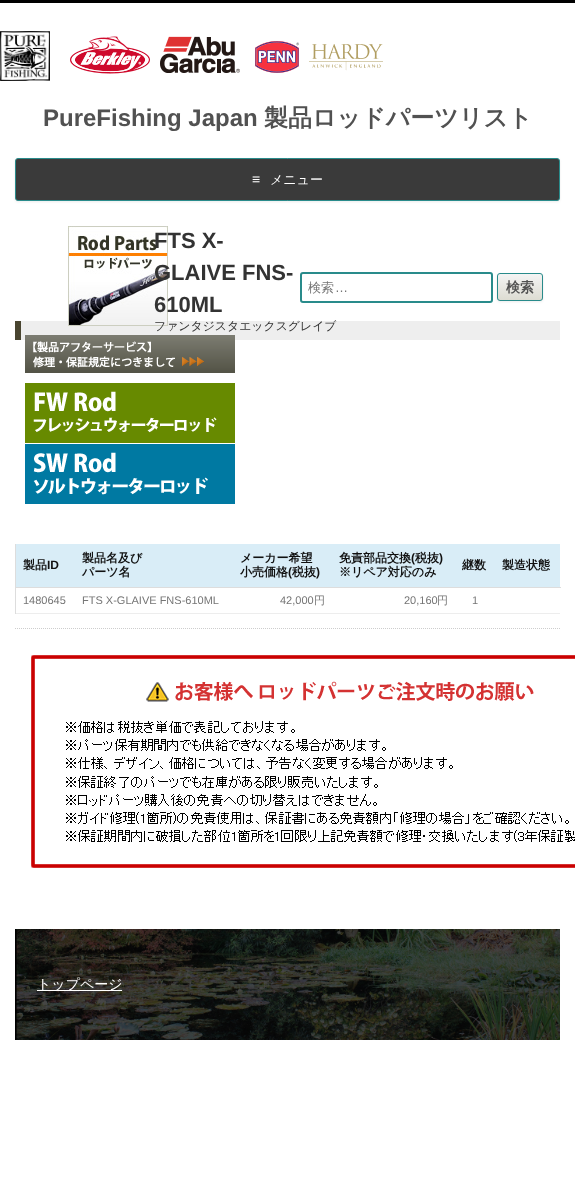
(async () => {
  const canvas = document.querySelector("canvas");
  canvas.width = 575;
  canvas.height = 1186;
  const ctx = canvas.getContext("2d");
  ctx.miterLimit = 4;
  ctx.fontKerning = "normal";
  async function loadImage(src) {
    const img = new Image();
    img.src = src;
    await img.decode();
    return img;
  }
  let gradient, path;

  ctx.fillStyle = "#ffffff";
  ctx.fillRect(0, 0, 575, 1186);
  ctx.fillStyle = "#000000";
  ctx.fillRect(0, 0, 575, 3);
  ctx.drawImage(await loadImage("img/1.png"), 0, 31, 50, 50);
  ctx.drawImage(await loadImage("img/2.png"), 70, 36, 80, 38);
  ctx.drawImage(await loadImage("img/3.png"), 160, 36, 80, 37);
  ctx.drawImage(await loadImage("img/4.png"), 255, 41, 44, 32);
  ctx.drawImage(await loadImage("img/5.png"), 309, 44, 74, 27);
  ctx.fillStyle = "rgba(64, 64, 64, 0.1)";
  ctx.filter = "blur(1px)";
  ctx.beginPath();
  ctx.roundRect(15, 159, 545, 43, 3);
  ctx.fill();
  ctx.filter = "none";
  ctx.fillStyle = "#3a3a3a";
  ctx.beginPath();
  ctx.roundRect(15.5, 158.5, 544, 42, 2.5);
  ctx.fill();
  ctx.strokeStyle = "#298b8b";
  ctx.stroke();
  ctx.fillStyle = "#eeeeee";
  ctx.fillRect(21, 321, 539, 19);
  ctx.drawImage(await loadImage("img/6.png"), 68, 226, 100, 100);
  ctx.drawImage(await loadImage("img/7.png"), 25, 335, 210, 38);
  ctx.drawImage(await loadImage("img/8.png"), 25, 383, 210, 60);
  ctx.drawImage(await loadImage("img/9.png"), 25, 444, 210, 60);
  path = new Path2D("M15 628.5H560");
  ctx.strokeStyle = "#cdcdcd";
  ctx.setLineDash([1, 1]);
  ctx.stroke(path);
  for (const [x, y, w, h, color] of [
    [15, 321, 6, 19, "#494530"],
    [15, 613, 545, 1, "#ededed"],
    [15, 544, 1, 70, "#dddddd"],
    [16, 544, 544, 43, "#d9edf7"],
    [15, 587, 546, 1, "#dddddd"],
  ]) {
    ctx.fillStyle = color;
    ctx.fillRect(x, y, w, h);
  }
  ctx.drawImage(await loadImage("img/10.png"), 31, 655, 544, 213);
  ctx.beginPath();
  ctx.roundRect(301, 273, 191, 29, 2);
  ctx.strokeStyle = "#298b8b";
  ctx.lineWidth = 2;
  ctx.setLineDash([]);
  ctx.stroke();
  ctx.fillStyle = "rgba(64, 64, 64, 0.1)";
  ctx.filter = "blur(1px)";
  ctx.beginPath();
  ctx.roundRect(497, 274, 46, 28, 3);
  ctx.fill();
  ctx.filter = "none";
  ctx.save();
  ctx.beginPath();
  ctx.roundRect(497, 273, 46, 28, 3);
  ctx.clip();
  gradient = ctx.createLinearGradient(520, 274, 520, 300);
  gradient.addColorStop(0, "#f4f4f4");
  gradient.addColorStop(1, "#dddcd2");
  ctx.fillStyle = gradient;
  ctx.fillRect(497, 274, 46, 26);
  ctx.restore();
  ctx.beginPath();
  ctx.roundRect(497.5, 273.5, 45, 27, 2.5);
  ctx.lineWidth = 1;
  ctx.stroke();
  ctx.drawImage(await loadImage("img/11.png"), 15, 929, 545, 111);
  ctx.fillStyle = "#ffffff";
  ctx.fillRect(37, 990, 85, 1);
  ctx.font = "bold 24px Liberation Sans";
  ctx.fillStyle = "#515151";
  ctx.fillText("PureFishing Japan", 43, 126);
  ctx.font = "bold 24px WenQuanYi Zen Hei";
  ctx.fillText("製品ロッドパーツリスト", 264, 126);
  ctx.font = "14px Liberation Sans";
  ctx.fillStyle = "#ffffff";
  ctx.fillText("≡", 252, 184);
  ctx.font = "500 13px WenQuanYi Zen Hei";
  ctx.fillText("メニュー", 270, 184);
  ctx.font = "bold 22px Liberation Sans";
  ctx.fillStyle = "#333333";
  for (const [text, x, y] of [
    ["FTS X-", 154, 248],
    ["GLAIVE FNS-", 154, 280],
    ["610ML", 154, 312],
  ]) {
    ctx.fillText(text, x, y);
  }
  ctx.font = "500 11.9px WenQuanYi Zen Hei";
  ctx.fillText("ファンタジスタエックスグレイブ", 154, 330);
  ctx.font = "bold 12px WenQuanYi Zen Hei";
  ctx.fillStyle = "#111111";
  ctx.fillText("製品", 23, 569);
  ctx.font = "bold 12px Liberation Sans";
  ctx.fillText("ID", 47, 569);
  ctx.font = "bold 12px WenQuanYi Zen Hei";
  for (const [text, x, y] of [
    ["製品名及び", 82, 562],
    ["パーツ名", 82, 576],
    ["メーカー希望", 240, 562],
    ["小売価格", 240, 576],
  ]) {
    ctx.fillText(text, x, y);
  }
  ctx.font = "bold 12px Liberation Sans";
  ctx.fillText("(", 288, 576);
  ctx.font = "bold 12px WenQuanYi Zen Hei";
  ctx.fillText("税抜", 292, 576);
  ctx.font = "bold 12px Liberation Sans";
  ctx.fillText(")", 316, 576);
  ctx.font = "bold 12px WenQuanYi Zen Hei";
  ctx.fillText("免責部品交換", 339, 562);
  ctx.font = "bold 12px Liberation Sans";
  ctx.fillText("(", 411, 562);
  ctx.font = "bold 12px WenQuanYi Zen Hei";
  ctx.fillText("税抜", 415, 562);
  ctx.font = "bold 12px Liberation Sans";
  ctx.fillText(")", 439, 562);
  ctx.font = "bold 12px WenQuanYi Zen Hei";
  for (const [text, x, y] of [
    ["※リペア対応のみ", 339, 576],
    ["継数", 462, 569],
    ["製造状態", 502, 569],
  ]) {
    ctx.fillText(text, x, y);
  }
  ctx.font = "11px Liberation Sans";
  ctx.fillStyle = "#757575";
  for (const [text, x, y] of [
    ["1480645", 23, 604],
    ["FTS X-GLAIVE FNS-610ML", 82, 604],
    ["42,000", 280, 604],
  ]) {
    ctx.fillText(text, x, y);
  }
  ctx.font = "500 11px WenQuanYi Zen Hei";
  ctx.fillText("円", 314, 604);
  ctx.font = "11px Liberation Sans";
  ctx.fillText("20,160", 404, 604);
  ctx.font = "500 11px WenQuanYi Zen Hei";
  ctx.fillText("円", 437, 604);
  ctx.font = "11px Liberation Sans";
  ctx.fillText("1", 472, 604);
  ctx.font = "500 13px WenQuanYi Zen Hei";
  ctx.fillText("検索", 308, 292);
  ctx.font = "13px Liberation Sans";
  ctx.fillText("…", 335, 292);
  ctx.font = "bold 14px WenQuanYi Zen Hei";
  ctx.fillStyle = "#515151";
  ctx.fillText("検索", 506, 292);
  ctx.font = "500 14px WenQuanYi Zen Hei";
  ctx.fillStyle = "#ffffff";
  ctx.fillText("トップページ", 37, 989);
})();
